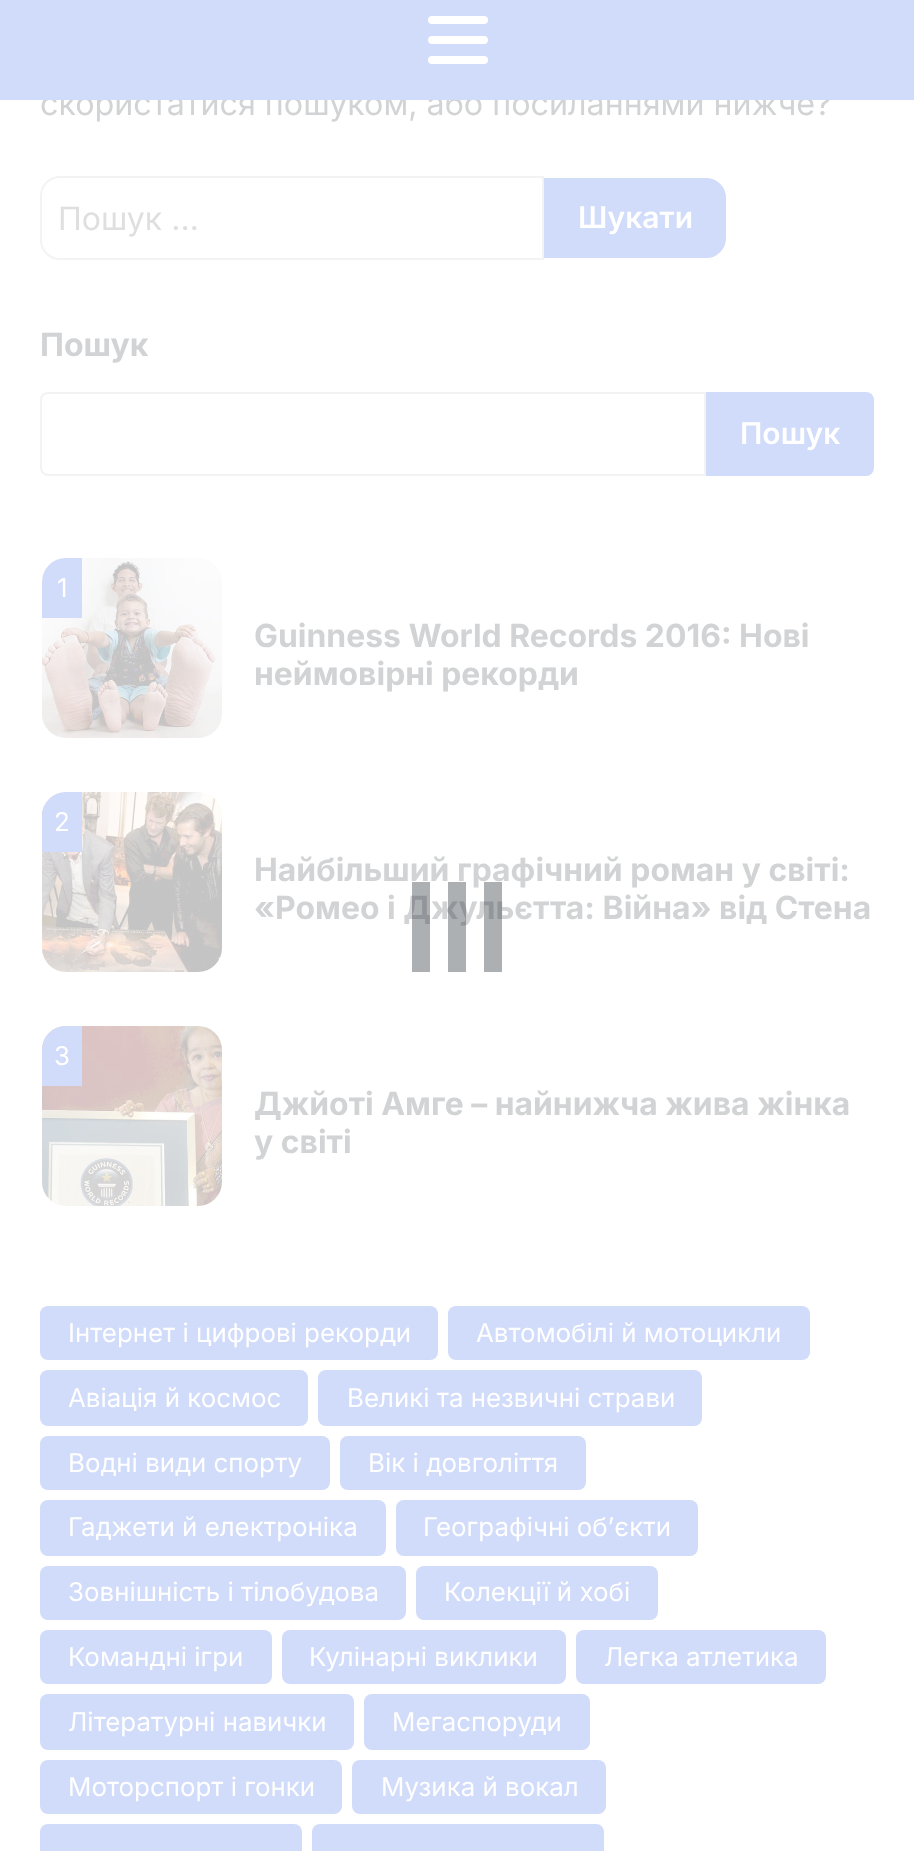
(async () => {
  const canvas = document.querySelector("canvas");
  canvas.width = 914;
  canvas.height = 1851;
  const ctx = canvas.getContext("2d");
  ctx.miterLimit = 4;
  ctx.fontKerning = "normal";
  async function loadImage(src) {
    const img = new Image();
    img.src = src;
    await img.decode();
    return img;
  }

  ctx.fillStyle = "#ffffff";
  ctx.fillRect(0, 0, 914, 1851);
  ctx.beginPath();
  ctx.roundRect(41, 177, 502, 82, [19, 0, 0, 19]);
  ctx.strokeStyle = "#f3f3f3";
  ctx.lineWidth = 2;
  ctx.stroke();
  ctx.fillStyle = "#d1dbfa";
  ctx.beginPath();
  ctx.roundRect(545, 179, 180, 78, [0, 19, 19, 0]);
  ctx.fill();
  ctx.strokeStyle = "#d1dbfa";
  ctx.stroke();
  ctx.beginPath();
  ctx.roundRect(41, 393, 664, 82, [7, 0, 0, 7]);
  ctx.strokeStyle = "#f3f3f3";
  ctx.stroke();
  ctx.beginPath();
  ctx.roundRect(707, 393, 166, 82, [0, 7, 7, 0]);
  ctx.fill();
  ctx.strokeStyle = "#d1dbfa";
  ctx.stroke();
  ctx.drawImage(await loadImage("img/1.png"), 42, 558, 180, 180);
  ctx.beginPath();
  ctx.roundRect(42, 558, 40, 60, [24, 0, 0, 0]);
  ctx.fill();
  ctx.drawImage(await loadImage("img/2.png"), 42, 792, 180, 180);
  ctx.beginPath();
  ctx.roundRect(42, 792, 40, 60, [24, 0, 0, 0]);
  ctx.fill();
  ctx.drawImage(await loadImage("img/3.png"), 42, 1026, 180, 180);
  ctx.beginPath();
  ctx.roundRect(42, 1026, 40, 60, [24, 0, 0, 0]);
  ctx.fill();
  ctx.beginPath();
  ctx.roundRect(40, 1306, 398, 54, 8);
  ctx.fill();
  ctx.beginPath();
  ctx.roundRect(448, 1306, 362, 54, 8);
  ctx.fill();
  ctx.beginPath();
  ctx.roundRect(40, 1370, 268, 56, 8);
  ctx.fill();
  ctx.beginPath();
  ctx.roundRect(318, 1370, 384, 56, 8);
  ctx.fill();
  ctx.beginPath();
  ctx.roundRect(40, 1436, 290, 54, 8);
  ctx.fill();
  ctx.beginPath();
  ctx.roundRect(340, 1436, 246, 54, 8);
  ctx.fill();
  ctx.beginPath();
  ctx.roundRect(40, 1500, 346, 56, 8);
  ctx.fill();
  ctx.beginPath();
  ctx.roundRect(396, 1500, 302, 56, 8);
  ctx.fill();
  ctx.beginPath();
  ctx.roundRect(40, 1566, 366, 54, 8);
  ctx.fill();
  ctx.beginPath();
  ctx.roundRect(416, 1566, 242, 54, 8);
  ctx.fill();
  ctx.beginPath();
  ctx.roundRect(40, 1630, 232, 54, 8);
  ctx.fill();
  ctx.beginPath();
  ctx.roundRect(282, 1630, 284, 54, 8);
  ctx.fill();
  ctx.beginPath();
  ctx.roundRect(576, 1630, 250, 54, 8);
  ctx.fill();
  ctx.beginPath();
  ctx.roundRect(40, 1694, 314, 56, 8);
  ctx.fill();
  ctx.beginPath();
  ctx.roundRect(364, 1694, 226, 56, 8);
  ctx.fill();
  ctx.beginPath();
  ctx.roundRect(40, 1760, 302, 54, 8);
  ctx.fill();
  ctx.beginPath();
  ctx.roundRect(352, 1760, 254, 54, 8);
  ctx.fill();
  ctx.beginPath();
  ctx.roundRect(40, 1824, 262, 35, 8);
  ctx.fill();
  ctx.beginPath();
  ctx.roundRect(312, 1824, 292, 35, 8);
  ctx.fill();
  ctx.font = "32.25px Inter";
  ctx.fillStyle = "#d1d3d4";
  ctx.fillText("скористатися пошуком, або посиланнями нижче?", 40, 115);
  ctx.fillStyle = "#d1dbfa";
  ctx.fillRect(0, 0, 914, 100);
  ctx.fillStyle = "#ffffff";
  ctx.beginPath();
  ctx.roundRect(428, 56, 60, 8, 4);
  ctx.fill();
  ctx.beginPath();
  ctx.roundRect(428, 36, 60, 8, 4);
  ctx.fill();
  ctx.beginPath();
  ctx.roundRect(428, 16, 60, 8, 4);
  ctx.fill();
  ctx.font = "32px Inter";
  ctx.fillStyle = "#dfdfdf";
  ctx.fillText("Пошук …", 58, 230);
  ctx.font = "600 30px Inter";
  ctx.fillStyle = "#ffffff";
  ctx.fillText("Шукати", 578, 228);
  ctx.font = "bold 32px Inter";
  ctx.fillStyle = "#d1d3d4";
  ctx.fillText("Пошук", 40, 356);
  ctx.font = "600 30px Inter";
  ctx.fillStyle = "#ffffff";
  ctx.fillText("Пошук", 740, 444);
  ctx.font = "25.9px Inter";
  ctx.fillText("1", 57, 597);
  ctx.font = "bold 31.9px Inter";
  ctx.fillStyle = "#d1d3d4";
  ctx.fillText("Guinness World Records 2016: Нові", 254, 647);
  ctx.fillText("неймовірні рекорди", 254, 685);
  ctx.font = "25.9px Inter";
  ctx.fillStyle = "#ffffff";
  ctx.fillText("2", 54, 831);
  ctx.font = "bold 31.9px Inter";
  ctx.fillStyle = "#d1d3d4";
  ctx.fillText("Найбільший графічний роман у світі:", 254, 881);
  ctx.fillText("«Ромео і Джульєтта: Війна» від Стена", 254, 919);
  ctx.font = "25.9px Inter";
  ctx.fillStyle = "#ffffff";
  ctx.fillText("3", 54, 1065);
  ctx.font = "bold 31.9px Inter";
  ctx.fillStyle = "#d1d3d4";
  ctx.fillText("Джйоті Амге – найнижча жива жінка", 254, 1115);
  ctx.fillText("у світі", 254, 1153);
  ctx.font = "25.9px Inter";
  ctx.fillStyle = "#ffffff";
  for (const [text, x, y] of [
    ["Інтернет і цифрові рекорди", 68, 1342],
    ["Автомобілі й мотоцикли", 476, 1342],
    ["Авіація й космос", 68, 1407],
    ["Великі та незвичні страви", 347, 1407],
    ["Водні види спорту", 68, 1472],
    ["Вік і довголіття", 368, 1472],
    ["Гаджети й електроніка", 68, 1536],
    ["Географічні об’єкти", 423, 1536],
    ["Зовнішність і тілобудова", 68, 1601],
    ["Колекції й хобі", 444, 1601],
    ["Командні ігри", 68, 1666],
    ["Кулінарні виклики", 309, 1666],
    ["Легка атлетика", 604, 1666],
    ["Літературні навички", 68, 1731],
    ["Мегаспоруди", 392, 1731],
    ["Моторспорт і гонки", 68, 1796],
    ["Музика й вокал", 381, 1796],
  ]) {
    ctx.fillText(text, x, y);
  }
  for (const [x, y, w, h, color] of [
    [484, 882, 18, 90, "rgba(57, 62, 70, 0.41)"],
    [448, 882, 18, 90, "rgba(57, 62, 70, 0.41)"],
    [412, 882, 18, 90, "rgba(57, 62, 70, 0.41)"],
  ]) {
    ctx.fillStyle = color;
    ctx.fillRect(x, y, w, h);
  }
})();
